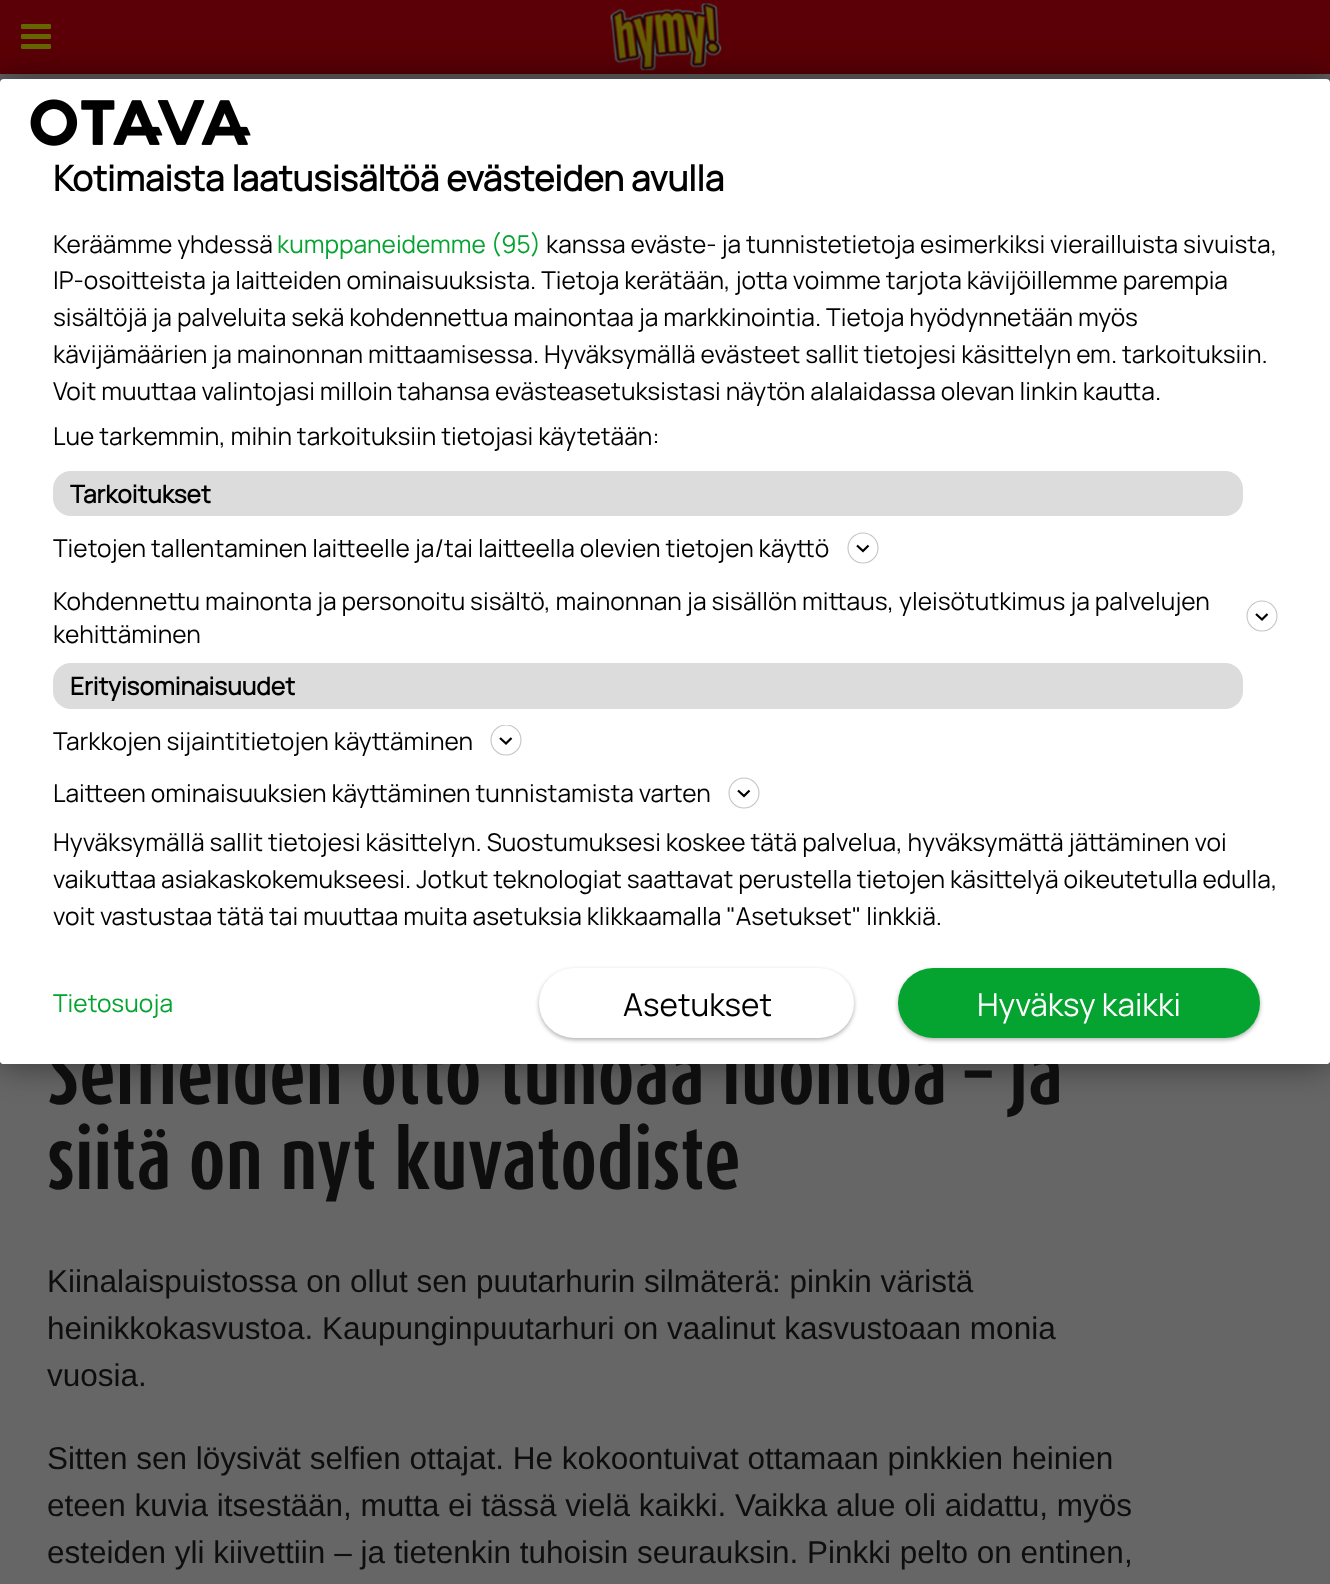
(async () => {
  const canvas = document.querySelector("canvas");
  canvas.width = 1330;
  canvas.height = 1584;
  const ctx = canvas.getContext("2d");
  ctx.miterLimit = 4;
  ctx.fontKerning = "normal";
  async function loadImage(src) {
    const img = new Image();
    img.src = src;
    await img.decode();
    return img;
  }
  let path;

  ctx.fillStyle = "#666666";
  ctx.fillRect(0, 0, 1330, 1584);
  ctx.fillStyle = "rgba(0, 0, 0, 0.1)";
  ctx.filter = "blur(4.5px)";
  ctx.beginPath();
  ctx.rect(0, 2, 1330, 73);
  ctx.fill();
  ctx.filter = "none";
  ctx.fillStyle = "#5b0006";
  ctx.fillRect(0, 0, 1330, 74);
  ctx.drawImage(await loadImage("img/2.png"), 21, 24, 30, 25);
  ctx.drawImage(await loadImage("img/3.png"), 609, 3, 114, 68);
  ctx.fillStyle = "rgba(0, 0, 0, 0.5)";
  ctx.filter = "blur(17.5px)";
  ctx.beginPath();
  ctx.roundRect(0, 79, 1330, 985, 4);
  ctx.fill();
  ctx.filter = "none";
  ctx.font = "bold 77.3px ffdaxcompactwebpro";
  ctx.fillStyle = "#0e0e0e";
  ctx.fillText("Selfieiden otto tuhoaa luontoa – ja", 47, 1104);
  ctx.fillStyle = "#ffffff";
  ctx.beginPath();
  ctx.roundRect(0, 79, 1330, 985, 4);
  ctx.fill();
  ctx.fillStyle = "#dcdcdc";
  ctx.beginPath();
  ctx.roundRect(53, 663, 1190, 46, 18);
  ctx.fill();
  ctx.font = "bold 24.5px Manrope";
  ctx.fillStyle = "#000000";
  ctx.fillText("Erityisominaisuudet", 70, 695);
  ctx.fillStyle = "#dcdcdc";
  ctx.beginPath();
  ctx.roundRect(53, 471, 1190, 45, 18);
  ctx.fill();
  ctx.fillStyle = "#000000";
  ctx.fillText("Tarkoitukset", 70, 503);
  path = new Path2D("M738 790.5L744 796L749.5 790.5");
  ctx.strokeStyle = "#000000";
  ctx.lineWidth = 2.2;
  ctx.stroke(path);
  ctx.beginPath();
  ctx.arc(744, 793, 15, 0, Math.PI * 2);
  ctx.strokeStyle = "#c4c4c4";
  ctx.lineWidth = 1.1;
  ctx.stroke();
  path = new Path2D("M500 738L506 743.5L511.5 738");
  ctx.strokeStyle = "#000000";
  ctx.lineWidth = 2.2;
  ctx.stroke(path);
  ctx.save();
  ctx.beginPath();
  ctx.rect(490, 725, 32, 31);
  ctx.clip();
  ctx.beginPath();
  ctx.arc(506, 740, 15, 0, Math.PI * 2);
  ctx.strokeStyle = "#c4c4c4";
  ctx.lineWidth = 1.1;
  ctx.stroke();
  ctx.restore();
  path = new Path2D("M1256 614L1262 619.5L1267.5 614");
  ctx.stroke(path);
  ctx.beginPath();
  ctx.arc(1262, 616, 15, 0, Math.PI * 2);
  ctx.strokeStyle = "#c4c4c4";
  ctx.lineWidth = 1.1;
  ctx.stroke();
  path = new Path2D("M857 545.5L863 551L868.5 545.5");
  ctx.strokeStyle = "#000000";
  ctx.lineWidth = 2.2;
  ctx.stroke(path);
  ctx.beginPath();
  ctx.arc(863, 548, 15, 0, Math.PI * 2);
  ctx.strokeStyle = "#c4c4c4";
  ctx.lineWidth = 1.1;
  ctx.stroke();
  ctx.fillStyle = "#ffffff";
  ctx.beginPath();
  ctx.roundRect(0, 942, 1330, 122, [0, 0, 4, 4]);
  ctx.fill();
  ctx.fillStyle = "rgba(0, 0, 0, 0.3)";
  ctx.filter = "blur(2px)";
  ctx.beginPath();
  ctx.roundRect(898, 970, 362, 70, 35);
  ctx.fill();
  ctx.filter = "none";
  ctx.fillStyle = "#05a330";
  ctx.beginPath();
  ctx.roundRect(898, 968, 362, 70, 35);
  ctx.fill();
  ctx.font = "200 31.5px Manrope";
  ctx.fillStyle = "#ffffff";
  ctx.fillText("Hyväksy kaikki", 977, 1016);
  ctx.fillStyle = "rgba(0, 0, 0, 0.3)";
  ctx.filter = "blur(2px)";
  ctx.beginPath();
  ctx.roundRect(539, 970, 315, 70, 35);
  ctx.fill();
  ctx.filter = "none";
  ctx.fillStyle = "#ffffff";
  ctx.beginPath();
  ctx.roundRect(539, 968, 315, 70, 35);
  ctx.fill();
  ctx.fillStyle = "#000000";
  ctx.fillText("Asetukset", 623, 1016);
  ctx.font = "200 24.5px Manrope";
  ctx.fillStyle = "#05a330";
  ctx.fillText("Tietosuoja", 53, 1012);
  ctx.fillStyle = "#000000";
  for (const [text, x, y] of [
    ["voit vastustaa tätä tai muuttaa muita asetuksia klikkaamalla \"Asetukset\" linkkiä.", 53, 925],
    ["vaikuttaa asiakaskokemukseesi. Jotkut teknologiat saattavat perustella tietojen käsittelyä oikeutetulla edulla,", 53, 888],
    ["Hyväksymällä sallit tietojesi käsittelyn. Suostumuksesi koskee tätä palvelua, hyväksymättä jättäminen voi", 53, 851],
    ["Laitteen ominaisuuksien käyttäminen tunnistamista varten", 53, 802],
    ["Tarkkojen sijaintitietojen käyttäminen", 53, 750],
    ["kehittäminen", 53, 643],
    ["Kohdennettu mainonta ja personoitu sisältö, mainonnan ja sisällön mittaus, yleisötutkimus ja palvelujen", 53, 610],
    ["Tietojen tallentaminen laitteelle ja/tai laitteella olevien tietojen käyttö", 53, 557],
    ["Lue tarkemmin, mihin tarkoituksiin tietojasi käytetään:", 53, 445],
    ["Voit muuttaa valintojasi milloin tahansa evästeasetuksistasi näytön alalaidassa olevan linkin kautta.", 53, 400],
    ["kävijämäärien ja mainonnan mittaamisessa. Hyväksymällä evästeet sallit tietojesi käsittelyn em. tarkoituksiin.", 53, 363],
    ["sisältöjä ja palveluita sekä kohdennettua mainontaa ja markkinointia. Tietoja hyödynnetään myös", 53, 326],
    ["IP-osoitteista ja laitteiden ominaisuuksista. Tietoja kerätään, jotta voimme tarjota kävijöillemme parempia", 53, 289],
    ["kanssa eväste- ja tunnistetietoja esimerkiksi vierailluista sivuista,", 546, 253],
  ]) {
    ctx.fillText(text, x, y);
  }
  ctx.fillStyle = "#05a330";
  ctx.fillText("kumppaneidemme (95)", 277, 253);
  ctx.fillStyle = "#000000";
  ctx.fillText("Keräämme yhdessä", 53, 253);
  ctx.font = "bold 35px Manrope";
  ctx.fillText("Kotimaista laatusisältöä evästeiden avulla", 53, 191);
  ctx.drawImage(await loadImage("img/1.png"), 30, 99, 221, 47);
  ctx.font = "bold 77.3px ffdaxcompactwebpro";
  ctx.fillStyle = "#0e0e0e";
  ctx.fillText("siitä on nyt kuvatodiste", 47, 1189);
  ctx.font = "31.5px Liberation Sans";
  for (const [text, x, y] of [
    ["Kiinalaispuistossa on ollut sen puutarhurin silmäterä: pinkin väristä", 47, 1292],
    ["heinikkokasvustoa. Kaupunginpuutarhuri on vaalinut kasvustoaan monia", 47, 1339],
    ["vuosia.", 47, 1386],
    ["Sitten sen löysivät selfien ottajat. He kokoontuivat ottamaan pinkkien heinien", 47, 1469],
    ["eteen kuvia itsestään, mutta ei tässä vielä kaikki. Vaikka alue oli aidattu, myös", 47, 1516],
    ["esteiden yli kiivettiin – ja tietenkin tuhoisin seurauksin. Pinkki pelto on entinen,", 47, 1563],
  ]) {
    ctx.fillText(text, x, y);
  }
})();
